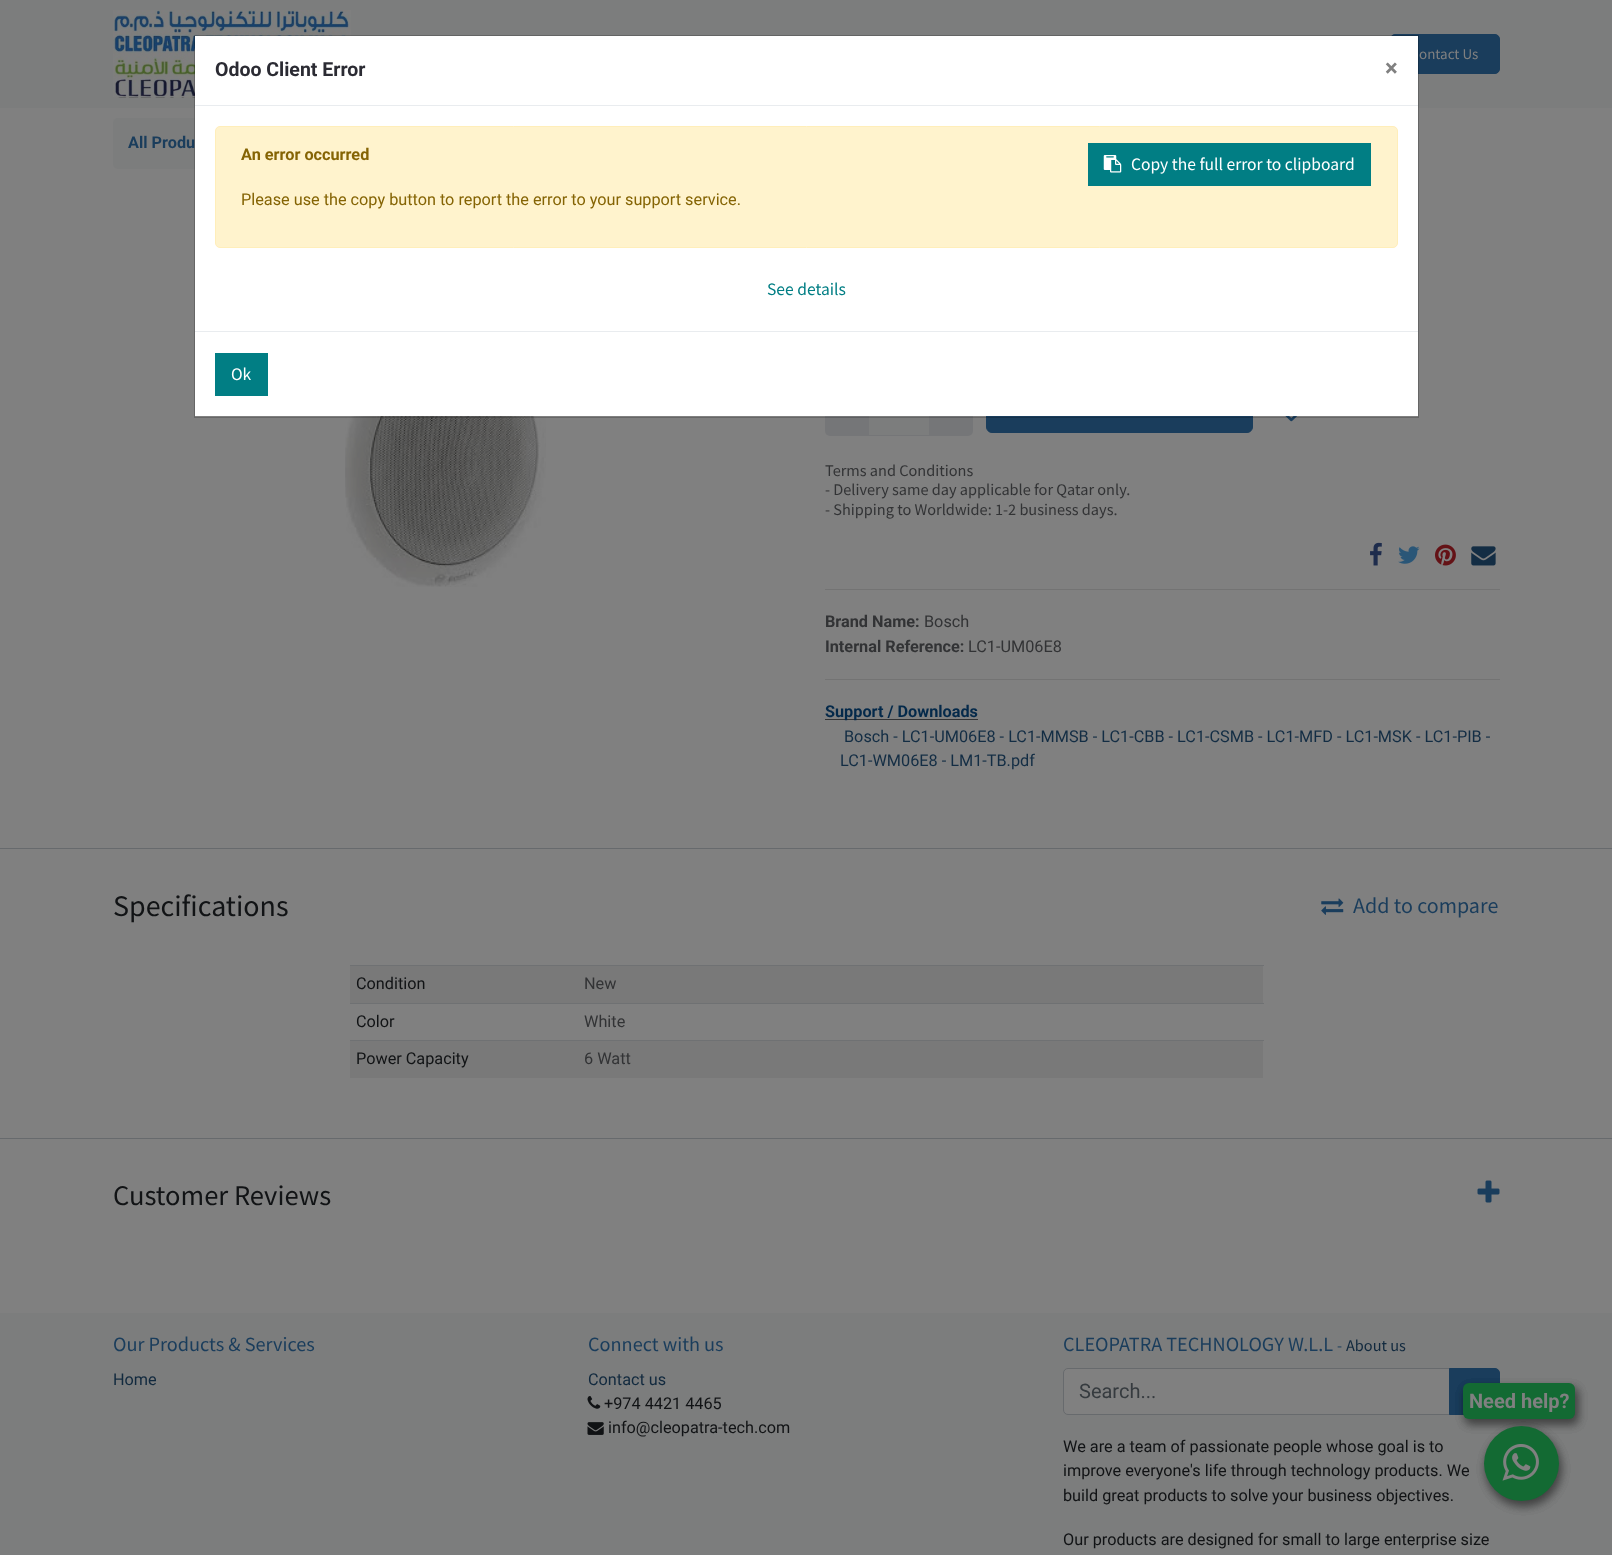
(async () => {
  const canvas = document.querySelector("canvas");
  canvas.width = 1612;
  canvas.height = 1555;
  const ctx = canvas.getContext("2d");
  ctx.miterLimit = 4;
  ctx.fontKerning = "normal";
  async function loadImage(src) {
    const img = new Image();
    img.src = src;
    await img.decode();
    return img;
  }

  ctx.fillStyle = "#808080";
  ctx.fillRect(0, 0, 1612, 1555);
  ctx.fillStyle = "#7c7d7d";
  ctx.fillRect(0, 0, 1612, 108);
  ctx.drawImage(await loadImage("img/1.png"), 113, 10, 238, 88);
  ctx.fillStyle = "#1a3d5c";
  ctx.beginPath();
  ctx.roundRect(1390.5, 34.5, 109, 39, 4.5);
  ctx.fill();
  ctx.strokeStyle = "#1a3d5c";
  ctx.stroke();
  ctx.fillStyle = "#7c7d7d";
  ctx.beginPath();
  ctx.roundRect(113, 118, 318, 51, 5);
  ctx.fill();
  ctx.drawImage(await loadImage("img/2.png"), 345, 416, 201, 171);
  ctx.fillRect(869, 416, 60, 19);
  ctx.strokeStyle = "#757678";
  ctx.strokeRect(868.5, 378.5, 61, 57);
  ctx.fillStyle = "#757678";
  ctx.beginPath();
  ctx.roundRect(825, 378, 44, 58, [5, 0, 0, 5]);
  ctx.fill();
  ctx.beginPath();
  ctx.roundRect(929, 378, 44, 58, [0, 5, 5, 0]);
  ctx.fill();
  ctx.fillStyle = "#1a3d5c";
  ctx.beginPath();
  ctx.roundRect(986.5, 380.5, 266, 52, 5.5);
  ctx.fill();
  ctx.strokeStyle = "#1a3d5c";
  ctx.stroke();
  ctx.drawImage(await loadImage("img/3.png"), 1285, 416, 13, 6);
  ctx.drawImage(await loadImage("img/4.png"), 1370, 542, 12, 24);
  ctx.drawImage(await loadImage("img/5.png"), 1398, 546, 22, 18);
  ctx.drawImage(await loadImage("img/6.png"), 1435, 544, 21, 22);
  ctx.drawImage(await loadImage("img/7.png"), 1471, 546, 25, 20);
  for (const [x, y, w, h, color] of [
    [825, 589, 675, 1, "#737373"],
    [825, 679, 675, 1, "#737373"],
    [825, 719, 153, 1, "#323335"],
    [0, 848, 1612, 1, "#676a6d"],
  ]) {
    ctx.fillStyle = color;
    ctx.fillRect(x, y, w, h);
  }
  ctx.drawImage(await loadImage("img/8.png"), 1321, 898, 23, 17);
  for (const [x, y, w, h, color] of [
    [350, 966, 913, 37, "#797979"],
    [350, 965, 914, 1, "#6f7173"],
    [350, 1003, 914, 1, "#6f7173"],
    [350, 1041, 913, 37, "#797979"],
    [350, 1040, 914, 1, "#6f7173"],
    [0, 1138, 1612, 1, "#676a6d"],
  ]) {
    ctx.fillStyle = color;
    ctx.fillRect(x, y, w, h);
  }
  ctx.drawImage(await loadImage("img/9.png"), 1477, 1180, 23, 23);
  ctx.fillStyle = "#7c7d7d";
  ctx.fillRect(0, 1313, 1612, 242);
  ctx.drawImage(await loadImage("img/10.png"), 587, 1396, 14, 13);
  ctx.drawImage(await loadImage("img/11.png"), 587, 1422, 17, 13);
  ctx.fillStyle = "#808080";
  ctx.beginPath();
  ctx.roundRect(1063.5, 1368.5, 386, 46, [4.5, 0, 0, 4.5]);
  ctx.fill();
  ctx.strokeStyle = "#676a6d";
  ctx.stroke();
  ctx.fillStyle = "#1a3d5c";
  ctx.beginPath();
  ctx.roundRect(1449.5, 1368.5, 50, 46, [0, 4.5, 4.5, 0]);
  ctx.fill();
  ctx.strokeStyle = "#1a3d5c";
  ctx.stroke();
  ctx.fillStyle = "rgba(0, 0, 0, 0.2)";
  ctx.filter = "blur(5px)";
  ctx.beginPath();
  ctx.roundRect(1465, 1388, 113, 36, 6);
  ctx.fill();
  ctx.filter = "none";
  ctx.filter = "blur(5px)";
  ctx.beginPath();
  ctx.roundRect(1465, 1388, 113, 36, 6);
  ctx.fill();
  ctx.filter = "none";
  ctx.filter = "blur(5px)";
  ctx.beginPath();
  ctx.roundRect(1465, 1388, 113, 36, 6);
  ctx.fill();
  ctx.filter = "none";
  ctx.fillStyle = "#136a33";
  ctx.beginPath();
  ctx.roundRect(1463, 1383, 112, 36, 6);
  ctx.fill();
  ctx.fillStyle = "rgba(0, 0, 0, 0.2)";
  ctx.filter = "blur(5px)";
  ctx.beginPath();
  ctx.roundRect(1486, 1431, 75, 75, 37.5);
  ctx.fill();
  ctx.filter = "none";
  ctx.filter = "blur(5px)";
  ctx.beginPath();
  ctx.roundRect(1486, 1431, 75, 75, 37.5);
  ctx.fill();
  ctx.filter = "none";
  ctx.filter = "blur(5px)";
  ctx.beginPath();
  ctx.roundRect(1486, 1431, 75, 75, 37.5);
  ctx.fill();
  ctx.filter = "none";
  ctx.fillStyle = "#136a33";
  ctx.beginPath();
  ctx.arc(1521.5, 1463.5, 37.5, 0, Math.PI * 2);
  ctx.fill();
  ctx.drawImage(await loadImage("img/12.png"), 1502, 1444, 37, 37);
  ctx.fillStyle = "#ffffff";
  ctx.fillRect(195, 36, 1223, 380);
  ctx.strokeStyle = "rgba(0, 0, 0, 0.2)";
  ctx.strokeRect(194.5, 35.5, 1224, 382);
  ctx.fillStyle = "#e9ecef";
  ctx.fillRect(195, 105, 1223, 1);
  ctx.fillStyle = "#fff3cd";
  ctx.beginPath();
  ctx.roundRect(215.5, 126.5, 1182, 121, 4.5);
  ctx.fill();
  ctx.strokeStyle = "#ffeeba";
  ctx.stroke();
  ctx.fillStyle = "#017e84";
  ctx.fillRect(1088, 143, 283, 43);
  ctx.drawImage(await loadImage("img/13.png"), 1103, 155, 19, 18);
  ctx.fillStyle = "#e9ecef";
  ctx.fillRect(195, 331, 1223, 1);
  ctx.fillStyle = "#017e84";
  ctx.fillRect(215, 353, 53, 43);
  ctx.font = "15px Source Sans Pro";
  ctx.fillStyle = "#808080";
  ctx.fillText("ontact Us", 1419, 59);
  ctx.font = "bold 16.25px Roboto";
  ctx.fillStyle = "#1a3d5c";
  ctx.fillText("All Produ", 128, 148);
  ctx.font = "16.25px Source Sans Pro";
  ctx.fillStyle = "#323335";
  for (const [text, x, y] of [
    ["Terms and Conditions", 825, 476],
    ["- Delivery same day applicable for Qatar only.", 825, 495],
    ["- Shipping to Worldwide: 1-2 business days.", 825, 515],
  ]) {
    ctx.fillText(text, x, y);
  }
  ctx.font = "bold 16.25px Roboto";
  ctx.fillText("Brand Name:", 825, 627);
  ctx.font = "16.25px Roboto";
  ctx.fillText("Bosch", 924, 627);
  ctx.font = "bold 16.25px Roboto";
  ctx.fillText("Internal Reference:", 825, 652);
  ctx.font = "16.25px Roboto";
  ctx.fillText("LC1-UM06E8", 968, 652);
  ctx.font = "bold 16.25px Roboto";
  ctx.fillStyle = "#04294a";
  ctx.fillText("Support / Downloads", 825, 717);
  ctx.font = "16.25px Roboto";
  ctx.fillStyle = "#132d44";
  ctx.fillText("Bosch - LC1-UM06E8 - LC1-MMSB - LC1-CBB - LC1-CSMB - LC1-MFD - LC1-MSK - LC1-PIB -", 844, 742);
  ctx.fillText("LC1-WM06E8 - LM1-TB.pdf", 840, 766);
  ctx.font = "30px Source Sans Pro";
  ctx.fillStyle = "#111315";
  ctx.fillText("Specifications", 113, 916);
  ctx.font = "22px Source Sans Pro";
  ctx.fillStyle = "#1a3d5c";
  ctx.fillText("Add to compare", 1353, 913);
  ctx.font = "16.25px Roboto";
  ctx.fillStyle = "#111315";
  ctx.fillText("Condition", 356, 989);
  ctx.fillStyle = "#323335";
  ctx.fillText("New", 584, 989);
  ctx.fillStyle = "#111315";
  ctx.fillText("Color", 356, 1027);
  ctx.fillStyle = "#323335";
  ctx.fillText("White", 584, 1027);
  ctx.fillStyle = "#111315";
  ctx.fillText("Power Capacity", 356, 1064);
  ctx.fillStyle = "#323335";
  ctx.fillText("6 Watt", 584, 1064);
  ctx.font = "28.5px Source Sans Pro";
  ctx.fillStyle = "#111315";
  ctx.fillText("Customer Reviews", 113, 1205);
  ctx.font = "20.25px Source Sans Pro";
  ctx.fillStyle = "#1a3d5c";
  ctx.fillText("Our Products & Services", 113, 1351);
  ctx.font = "16.25px Roboto";
  ctx.fillStyle = "#11293e";
  ctx.fillText("Home", 113, 1385);
  ctx.font = "20.25px Source Sans Pro";
  ctx.fillStyle = "#1a3d5c";
  ctx.fillText("Connect with us", 588, 1351);
  ctx.font = "16.25px Roboto";
  ctx.fillStyle = "#11293e";
  ctx.fillText("Contact us", 588, 1385);
  ctx.fillStyle = "#111315";
  ctx.fillText("+974 4421 4465", 604, 1409);
  ctx.fillText("info@cleopatra-tech.com", 608, 1433);
  ctx.font = "20.25px Source Sans Pro";
  ctx.fillStyle = "#1a3d5c";
  ctx.fillText("CLEOPATRA TECHNOLOGY W.L.L", 1063, 1351);
  ctx.font = "16.25px Source Sans Pro";
  ctx.fillText("-", 1337, 1351);
  ctx.fillStyle = "#11293e";
  ctx.fillText("About us", 1346, 1351);
  ctx.font = "20px Roboto";
  ctx.fillStyle = "#363b3f";
  ctx.fillText("Search...", 1079, 1398);
  ctx.font = "bold 20px Roboto";
  ctx.fillStyle = "#808080";
  ctx.fillText("Need help?", 1469, 1408);
  ctx.font = "16.25px Roboto";
  ctx.fillStyle = "#111315";
  for (const [text, x, y] of [
    ["We are a team of passionate people whose goal is to", 1063, 1452],
    ["improve everyone's life through technology products. We", 1063, 1476],
    ["build great products to solve your business objectives.", 1063, 1501],
    ["Our products are designed for small to large enterprise size", 1063, 1545],
  ]) {
    ctx.fillText(text, x, y);
  }
  ctx.font = "bold 19.5px Roboto";
  ctx.fillStyle = "#2b2b33";
  ctx.fillText("Odoo Client Error", 215, 76);
  ctx.font = "bold 24px Roboto";
  ctx.fillStyle = "#808080";
  ctx.fillText("×", 1385, 76);
  ctx.font = "bold 16.25px Roboto";
  ctx.fillStyle = "#856404";
  ctx.fillText("An error occurred", 241, 160);
  ctx.font = "17.5px Source Sans Pro";
  ctx.fillStyle = "#ffffff";
  ctx.fillText("Copy the full error to clipboard", 1131, 170);
  ctx.font = "16.25px Roboto";
  ctx.fillStyle = "#856404";
  ctx.fillText("Please use the copy button to report the error to your support service.", 241, 205);
  ctx.font = "17.5px Source Sans Pro";
  ctx.fillStyle = "#017e84";
  ctx.fillText("See details", 767, 295);
  ctx.fillStyle = "#ffffff";
  ctx.fillText("Ok", 231, 380);
})();
